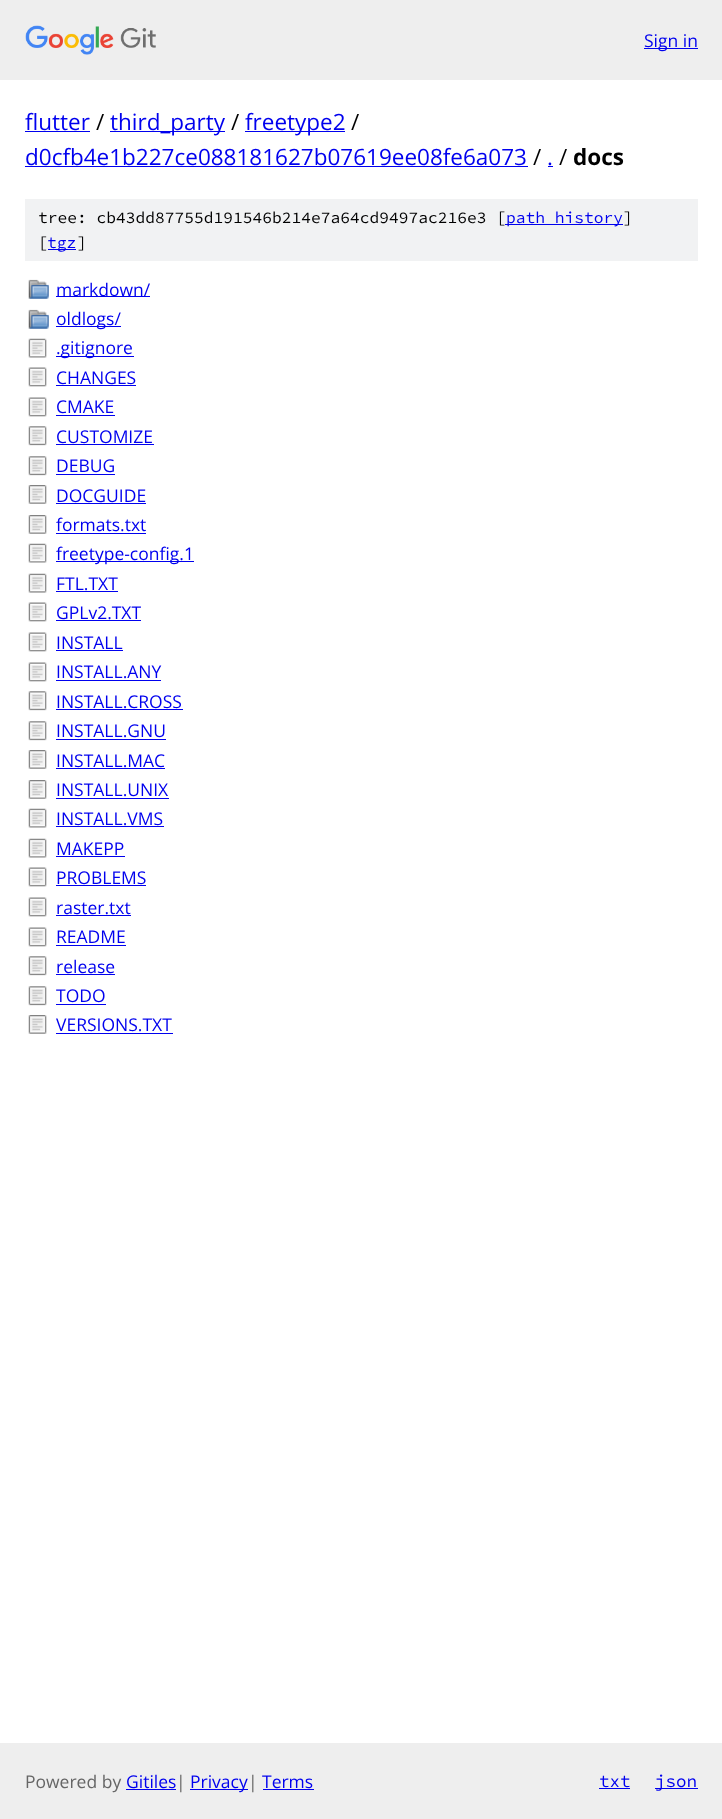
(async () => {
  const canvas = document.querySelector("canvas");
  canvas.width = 722;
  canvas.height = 1819;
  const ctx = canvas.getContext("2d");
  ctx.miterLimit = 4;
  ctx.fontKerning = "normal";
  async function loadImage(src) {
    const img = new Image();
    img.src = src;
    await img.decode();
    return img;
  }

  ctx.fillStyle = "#ffffff";
  ctx.fillRect(0, 0, 722, 1819);
  ctx.fillStyle = "#eeeeee";
  ctx.fillRect(0, 0, 722, 80);
  ctx.drawImage(await loadImage("img/1.png"), 25, 25, 131, 30);
  for (const [x, y, w, h, color] of [
    [644, 48, 54, 1, "#0000ee"],
    [25, 131, 65, 1, "#0000ee"],
    [110, 131, 115, 1, "#0000ee"],
    [245, 131, 100, 1, "#0000ee"],
    [25, 166, 503, 1, "#0000ee"],
    [548, 166, 5, 1, "#0000ee"],
    [25, 199, 673, 62, "#f1f2f3"],
    [505, 224, 118, 1, "#0000ee"],
    [48, 249, 28, 1, "#0000ee"],
  ]) {
    ctx.fillStyle = color;
    ctx.fillRect(x, y, w, h);
  }
  ctx.drawImage(await loadImage("img/2.png"), 28, 279, 21, 20);
  ctx.fillRect(56, 296, 94, 1);
  ctx.drawImage(await loadImage("img/3.png"), 28, 309, 21, 20);
  ctx.fillRect(56, 326, 65, 1);
  ctx.drawImage(await loadImage("img/4.png"), 28, 338, 19, 20);
  ctx.fillRect(56, 356, 78, 1);
  ctx.drawImage(await loadImage("img/5.png"), 28, 367, 19, 20);
  ctx.fillRect(56, 385, 80, 1);
  ctx.drawImage(await loadImage("img/5.png"), 28, 397, 19, 20);
  ctx.fillRect(56, 415, 59, 1);
  ctx.drawImage(await loadImage("img/6.png"), 28, 426, 19, 20);
  ctx.fillRect(56, 444, 98, 1);
  ctx.drawImage(await loadImage("img/6.png"), 28, 456, 19, 20);
  ctx.fillRect(56, 474, 59, 1);
  ctx.drawImage(await loadImage("img/7.png"), 28, 485, 19, 19);
  ctx.fillRect(56, 503, 90, 1);
  ctx.drawImage(await loadImage("img/7.png"), 28, 515, 19, 19);
  ctx.fillRect(56, 533, 90, 1);
  ctx.drawImage(await loadImage("img/4.png"), 28, 543, 19, 20);
  ctx.fillRect(56, 561, 138, 1);
  ctx.drawImage(await loadImage("img/8.png"), 28, 573, 19, 20);
  ctx.fillRect(56, 591, 62, 1);
  ctx.drawImage(await loadImage("img/5.png"), 28, 602, 19, 20);
  ctx.fillRect(56, 620, 85, 1);
  ctx.drawImage(await loadImage("img/5.png"), 28, 632, 19, 20);
  ctx.fillRect(56, 650, 67, 1);
  ctx.drawImage(await loadImage("img/5.png"), 28, 662, 19, 20);
  ctx.fillRect(56, 680, 105, 1);
  ctx.drawImage(await loadImage("img/6.png"), 28, 691, 19, 20);
  ctx.fillRect(56, 709, 127, 1);
  ctx.drawImage(await loadImage("img/6.png"), 28, 721, 19, 20);
  ctx.fillRect(56, 739, 110, 1);
  ctx.drawImage(await loadImage("img/7.png"), 28, 750, 19, 19);
  ctx.fillRect(56, 768, 109, 1);
  ctx.drawImage(await loadImage("img/9.png"), 28, 780, 19, 19);
  ctx.fillRect(56, 798, 113, 1);
  ctx.drawImage(await loadImage("img/4.png"), 28, 808, 19, 20);
  ctx.fillRect(56, 826, 108, 1);
  ctx.drawImage(await loadImage("img/4.png"), 28, 838, 19, 20);
  ctx.fillRect(56, 856, 69, 1);
  ctx.drawImage(await loadImage("img/5.png"), 28, 867, 19, 20);
  ctx.fillRect(56, 885, 90, 1);
  ctx.drawImage(await loadImage("img/5.png"), 28, 897, 19, 20);
  ctx.fillRect(56, 915, 75, 1);
  ctx.drawImage(await loadImage("img/5.png"), 28, 927, 19, 20);
  ctx.fillRect(56, 945, 70, 1);
  ctx.drawImage(await loadImage("img/6.png"), 28, 956, 19, 20);
  ctx.fillRect(56, 974, 59, 1);
  ctx.drawImage(await loadImage("img/6.png"), 28, 986, 19, 20);
  ctx.fillRect(56, 1004, 50, 1);
  ctx.drawImage(await loadImage("img/7.png"), 28, 1015, 19, 19);
  for (const [x, y, w, h, color] of [
    [56, 1033, 117, 1, "#0000ee"],
    [0, 1743, 722, 76, "#eeeeee"],
    [126, 1789, 50, 1, "#0000ee"],
    [190, 1789, 58, 1, "#0000ee"],
    [263, 1789, 51, 1, "#0000ee"],
    [599, 1788, 31, 1, "#0000ee"],
    [655, 1788, 43, 1, "#0000ee"],
  ]) {
    ctx.fillStyle = color;
    ctx.fillRect(x, y, w, h);
  }
  ctx.font = "17.5px Open Sans";
  ctx.fillText("Sign in", 644, 47);
  ctx.font = "22.5px Open Sans";
  ctx.fillText("flutter", 25, 130);
  ctx.fillStyle = "#000000";
  ctx.fillText("/", 96, 130);
  ctx.fillStyle = "#0000ee";
  ctx.fillText("third_party", 110, 130);
  ctx.fillStyle = "#000000";
  ctx.fillText("/", 231, 130);
  ctx.fillStyle = "#0000ee";
  ctx.fillText("freetype2", 245, 130);
  ctx.fillStyle = "#000000";
  ctx.fillText("/", 351, 130);
  ctx.fillStyle = "#0000ee";
  ctx.fillText("d0cfb4e1b227ce088181627b07619ee08fe6a073", 25, 165);
  ctx.fillStyle = "#000000";
  ctx.fillText("/", 533, 165);
  ctx.fillStyle = "#0000ee";
  ctx.fillText(".", 547, 165);
  ctx.fillStyle = "#000000";
  ctx.fillText("/", 559, 165);
  ctx.font = "bold 22.5px Open Sans";
  ctx.fillText("docs", 573, 165);
  ctx.font = "200 16.25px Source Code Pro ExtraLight";
  ctx.fillText("tree: cb43dd87755d191546b214e7a64cd9497ac216e3 [", 38, 223);
  ctx.fillStyle = "#0000ee";
  ctx.fillText("path history", 506, 223);
  ctx.fillStyle = "#000000";
  ctx.fillText("]", 623, 223);
  ctx.fillText("[", 38, 248);
  ctx.fillStyle = "#0000ee";
  ctx.fillText("tgz", 47, 248);
  ctx.fillStyle = "#000000";
  ctx.fillText("]", 77, 248);
  ctx.font = "17.5px Open Sans";
  ctx.fillStyle = "#0000ee";
  for (const [text, x, y] of [
    ["markdown/", 56, 296],
    ["oldlogs/", 56, 325],
    [".gitignore", 56, 354],
    ["CHANGES", 56, 384],
    ["CMAKE", 56, 413],
    ["CUSTOMIZE", 56, 443],
    ["DEBUG", 56, 472],
    ["DOCGUIDE", 56, 502],
    ["formats.txt", 56, 531],
    ["freetype-config.1", 56, 560],
    ["FTL.TXT", 56, 590],
    ["GPLv2.TXT", 56, 619],
    ["INSTALL", 56, 649],
    ["INSTALL.ANY", 56, 678],
    ["INSTALL.CROSS", 56, 708],
    ["INSTALL.GNU", 56, 737],
    ["INSTALL.MAC", 56, 767],
    ["INSTALL.UNIX", 56, 796],
    ["INSTALL.VMS", 56, 825],
    ["MAKEPP", 56, 855],
    ["PROBLEMS", 56, 884],
    ["raster.txt", 56, 914],
    ["README", 56, 943],
    ["release", 56, 973],
    ["TODO", 56, 1002],
    ["VERSIONS.TXT", 56, 1031],
  ]) {
    ctx.fillText(text, x, y);
  }
  ctx.fillStyle = "#666666";
  ctx.fillText("Powered by", 25, 1788);
  ctx.fillStyle = "#0000ee";
  ctx.fillText("Gitiles", 126, 1788);
  ctx.fillStyle = "#666666";
  ctx.fillText("|", 176, 1788);
  ctx.fillStyle = "#0000ee";
  ctx.fillText("Privacy", 190, 1788);
  ctx.fillStyle = "#666666";
  ctx.fillText("|", 248, 1788);
  ctx.fillStyle = "#0000ee";
  ctx.fillText("Terms", 262, 1788);
  ctx.font = "200 17.5px Source Code Pro ExtraLight";
  ctx.fillText("txt", 599, 1787);
  ctx.fillText("json", 655, 1787);
})();
